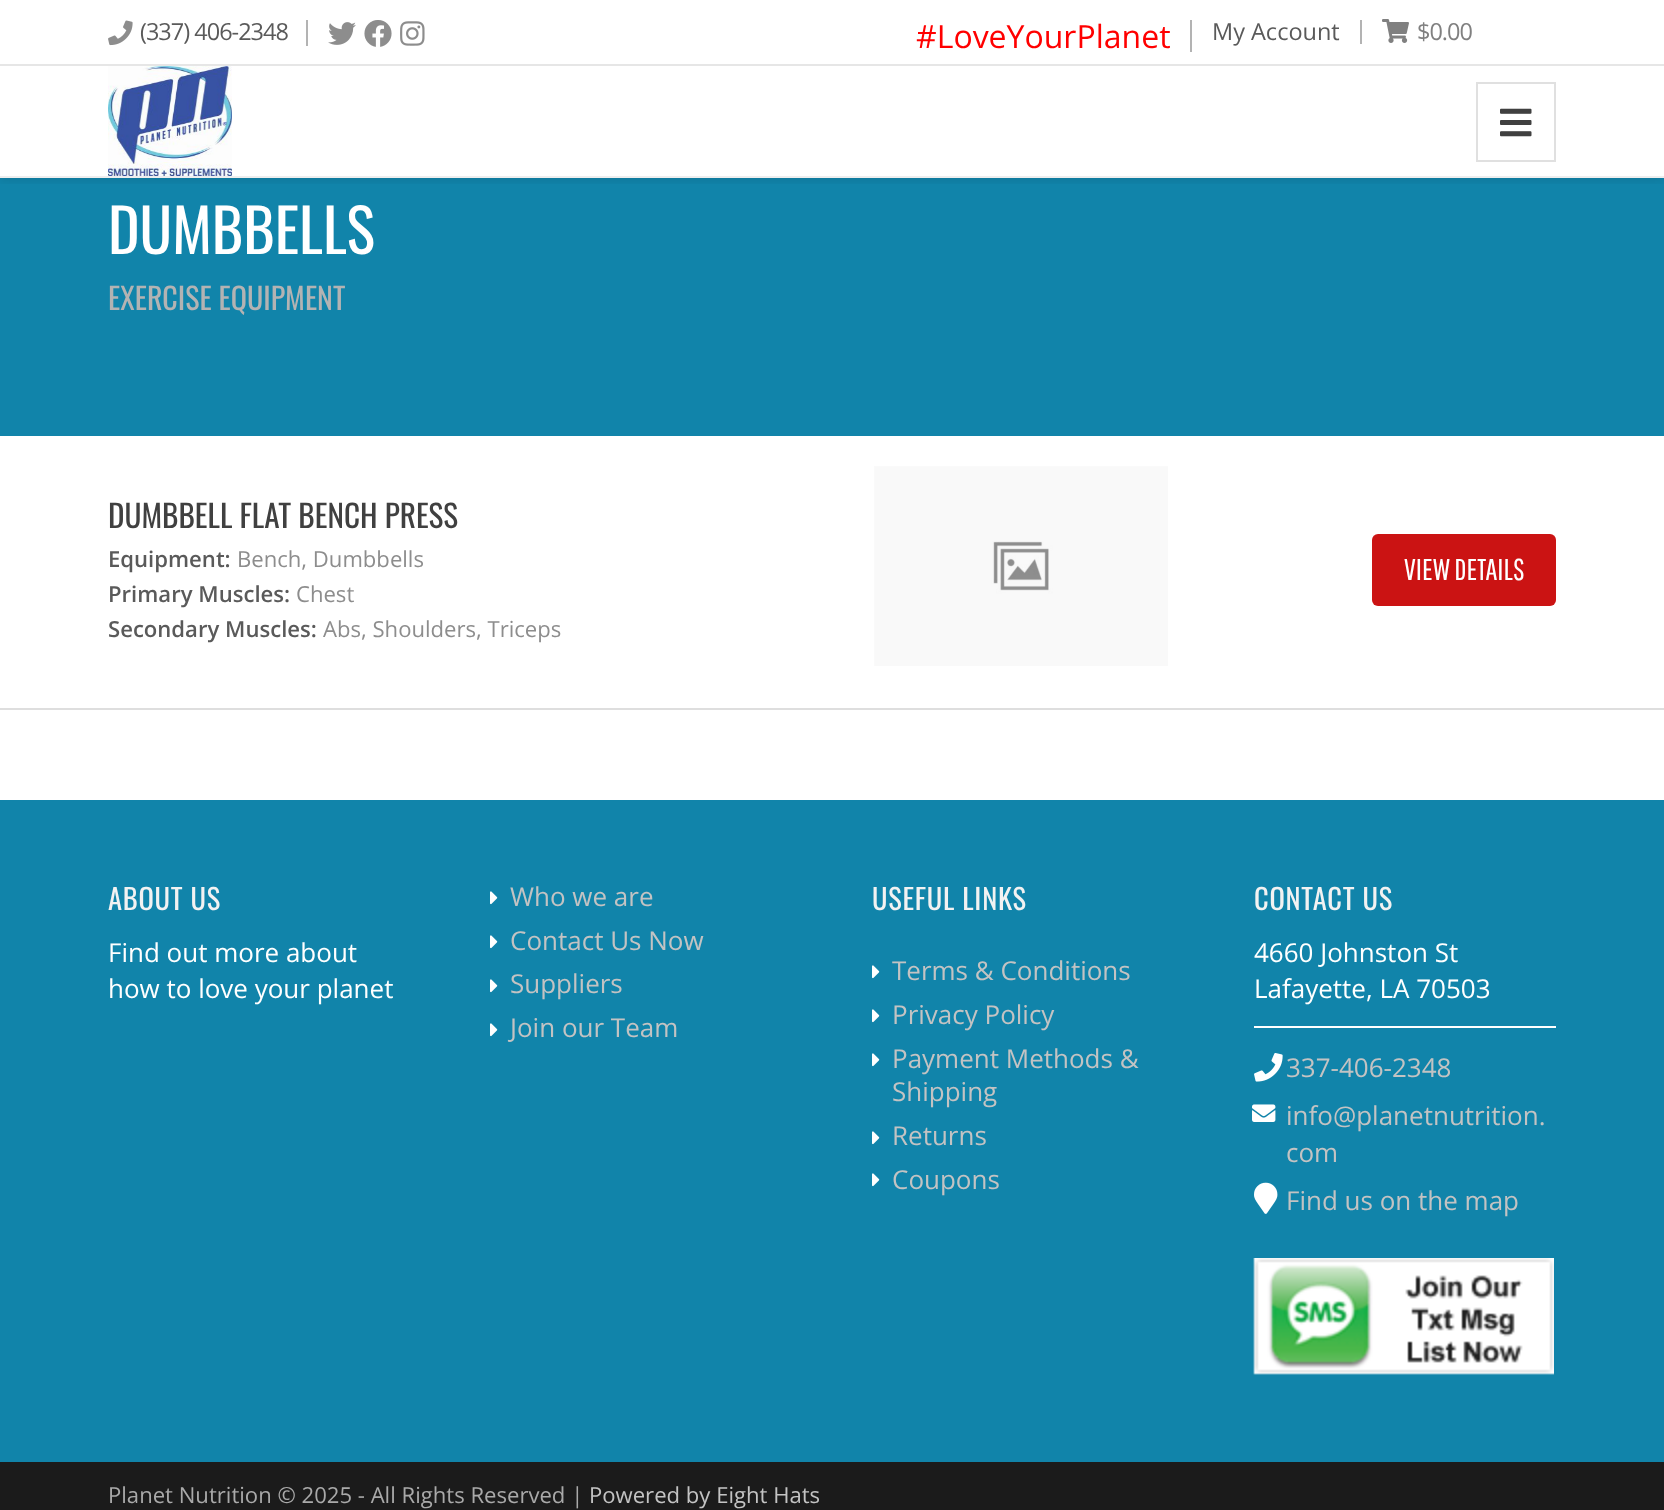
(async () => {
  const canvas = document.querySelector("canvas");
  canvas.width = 1664;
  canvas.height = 1510;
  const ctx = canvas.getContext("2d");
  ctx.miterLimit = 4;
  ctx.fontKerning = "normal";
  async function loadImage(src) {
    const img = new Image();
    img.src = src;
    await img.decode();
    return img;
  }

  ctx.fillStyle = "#ffffff";
  ctx.fillRect(0, 0, 1664, 1510);
  ctx.fillStyle = "#1184aa";
  ctx.fillRect(0, 178, 1664, 258);
  ctx.save();
  ctx.beginPath();
  ctx.rect(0, 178, 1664, 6);
  ctx.clip();
  ctx.fillStyle = "rgba(0, 0, 0, 0.1)";
  ctx.filter = "blur(5px)";
  ctx.beginPath();
  ctx.rect(0, 2, 1664, 178);
  ctx.fill();
  ctx.filter = "none";
  ctx.restore();
  ctx.fillStyle = "#e6e6e6";
  ctx.fillRect(0, 64, 1664, 2);
  ctx.fillStyle = "#b3b3b3";
  ctx.fillRect(306, 20, 2, 26);
  ctx.drawImage(await loadImage("img/1.png"), 108, 20, 25, 26);
  ctx.drawImage(await loadImage("img/2.png"), 328, 22, 28, 23);
  ctx.drawImage(await loadImage("img/3.png"), 364, 20, 28, 27);
  ctx.drawImage(await loadImage("img/4.png"), 400, 21, 25, 25);
  ctx.fillRect(1190, 20, 2, 32);
  ctx.fillRect(1360, 20, 2, 24);
  ctx.drawImage(await loadImage("img/5.png"), 1382, 19, 27, 24);
  ctx.fillStyle = "#eeeeee";
  ctx.fillRect(0, 176, 1664, 2);
  ctx.drawImage(await loadImage("img/6.png"), 108, 66, 124, 110);
  ctx.strokeStyle = "#e0e0e0";
  ctx.lineWidth = 2;
  ctx.strokeRect(1477, 83, 78, 78);
  ctx.drawImage(await loadImage("img/7.png"), 1500, 108, 32, 29);
  ctx.fillStyle = "#dedede";
  ctx.fillRect(0, 708, 1664, 2);
  ctx.drawImage(await loadImage("img/8.png"), 874, 466, 294, 200);
  ctx.fillStyle = "#cb1313";
  ctx.beginPath();
  ctx.roundRect(1372, 534, 184, 72, 6);
  ctx.fill();
  ctx.fillStyle = "#1184aa";
  ctx.fillRect(0, 800, 1664, 662);
  ctx.drawImage(await loadImage("img/9.png"), 490, 891, 8, 14);
  ctx.drawImage(await loadImage("img/9.png"), 490, 935, 8, 14);
  ctx.drawImage(await loadImage("img/9.png"), 490, 979, 8, 14);
  ctx.drawImage(await loadImage("img/9.png"), 490, 1023, 8, 14);
  ctx.drawImage(await loadImage("img/9.png"), 872, 965, 8, 14);
  ctx.drawImage(await loadImage("img/9.png"), 872, 1009, 8, 14);
  ctx.drawImage(await loadImage("img/9.png"), 872, 1053, 8, 14);
  ctx.drawImage(await loadImage("img/9.png"), 872, 1131, 8, 14);
  ctx.drawImage(await loadImage("img/9.png"), 872, 1173, 8, 14);
  ctx.fillStyle = "#ffffff";
  ctx.fillRect(1254, 1026, 302, 2);
  ctx.drawImage(await loadImage("img/10.png"), 1254, 1053, 29, 29);
  ctx.drawImage(await loadImage("img/11.png"), 1252, 1104, 24, 18);
  ctx.drawImage(await loadImage("img/12.png"), 1254, 1182, 24, 32);
  ctx.drawImage(await loadImage("img/13.png"), 1253, 1258, 301, 117);
  ctx.fillStyle = "#1b1b1b";
  ctx.fillRect(0, 1462, 1664, 48);
  ctx.letterSpacing = "-1px";
  ctx.font = "23.5px Open Sans";
  ctx.fillStyle = "#5a5a5a";
  ctx.fillText("(337) 406-2348", 140, 40);
  ctx.letterSpacing = "0px";
  ctx.font = "32px Open Sans";
  ctx.fillStyle = "#ff0000";
  ctx.fillText("#LoveYourPlanet", 916, 48);
  ctx.font = "23.5px Open Sans";
  ctx.fillStyle = "#5a5a5a";
  ctx.fillText("My Account", 1212, 40);
  ctx.letterSpacing = "-1px";
  ctx.fillStyle = "#808080";
  ctx.fillText("$0.00", 1417, 40);
  ctx.letterSpacing = "0px";
  ctx.font = "60px Oswald";
  ctx.fillStyle = "#ffffff";
  ctx.fillText("DUMBBELLS", 108, 254);
  ctx.font = "30px Oswald";
  ctx.fillStyle = "#b3b3b3";
  ctx.fillText("EXERCISE EQUIPMENT", 108, 310);
  ctx.font = "31.25px Oswald";
  ctx.fillStyle = "#404040";
  ctx.fillText("DUMBBELL FLAT BENCH PRESS", 108, 528);
  ctx.font = "600 22.1px Open Sans";
  ctx.fillStyle = "#5a5a5a";
  ctx.fillText("Equipment:", 108, 567);
  ctx.font = "22.1px Open Sans";
  ctx.fillStyle = "#8d8d8d";
  ctx.fillText("Bench, Dumbbells", 237, 567);
  ctx.font = "600 22.1px Open Sans";
  ctx.fillStyle = "#5a5a5a";
  ctx.fillText("Primary Muscles:", 108, 602);
  ctx.font = "22.1px Open Sans";
  ctx.fillStyle = "#8d8d8d";
  ctx.fillText("Chest", 296, 602);
  ctx.font = "600 22.1px Open Sans";
  ctx.fillStyle = "#5a5a5a";
  ctx.fillText("Secondary Muscles:", 108, 637);
  ctx.font = "22.1px Open Sans";
  ctx.fillStyle = "#8d8d8d";
  ctx.fillText("Abs, Shoulders, Triceps", 323, 637);
  ctx.font = "30px Pathway Gothic One";
  ctx.fillStyle = "#ffffff";
  ctx.fillText("VIEW DETAILS", 1404, 580);
  ctx.letterSpacing = "0.75px";
  ctx.font = "28.5px Oswald";
  ctx.fillStyle = "#f2f2f2";
  ctx.fillText("ABOUT US", 108, 910);
  ctx.letterSpacing = "0px";
  ctx.font = "26px Open Sans";
  ctx.fillStyle = "#ffffff";
  ctx.fillText("Find out more about", 108, 962);
  ctx.fillText("how to love your planet", 108, 998);
  ctx.fillStyle = "#c3c3c3";
  for (const [text, x, y] of [
    ["Who we are", 510, 906],
    ["Contact Us Now", 510, 950],
    ["Suppliers", 510, 993],
    ["Join our Team", 510, 1037],
  ]) {
    ctx.fillText(text, x, y);
  }
  ctx.letterSpacing = "0.75px";
  ctx.font = "28.5px Oswald";
  ctx.fillStyle = "#f2f2f2";
  ctx.fillText("USEFUL LINKS", 872, 910);
  ctx.letterSpacing = "0px";
  ctx.font = "26px Open Sans";
  ctx.fillStyle = "#c3c3c3";
  for (const [text, x, y] of [
    ["Terms & Conditions", 892, 980],
    ["Privacy Policy", 892, 1024],
    ["Payment Methods &", 892, 1068],
    ["Shipping", 892, 1101],
    ["Returns", 892, 1145],
    ["Coupons", 892, 1189],
  ]) {
    ctx.fillText(text, x, y);
  }
  ctx.letterSpacing = "0.75px";
  ctx.font = "28.5px Oswald";
  ctx.fillStyle = "#f2f2f2";
  ctx.fillText("CONTACT US", 1254, 910);
  ctx.letterSpacing = "0px";
  ctx.font = "26px Open Sans";
  ctx.fillStyle = "#ffffff";
  ctx.fillText("4660 Johnston St", 1254, 962);
  ctx.fillText("Lafayette, LA 70503", 1254, 998);
  ctx.fillStyle = "#c3c3c3";
  for (const [text, x, y] of [
    ["337-406-2348", 1286, 1077],
    ["info@planetnutrition.", 1286, 1125],
    ["com", 1286, 1162],
    ["Find us on the map", 1286, 1210],
  ]) {
    ctx.fillText(text, x, y);
  }
  ctx.font = "22.1px Open Sans";
  ctx.fillStyle = "#a9a9a9";
  ctx.fillText("Planet Nutrition © 2025 - All Rights Reserved |", 108, 1503);
  ctx.fillStyle = "#c3c3c3";
  ctx.fillText("Powered by Eight Hats", 589, 1503);
})();
